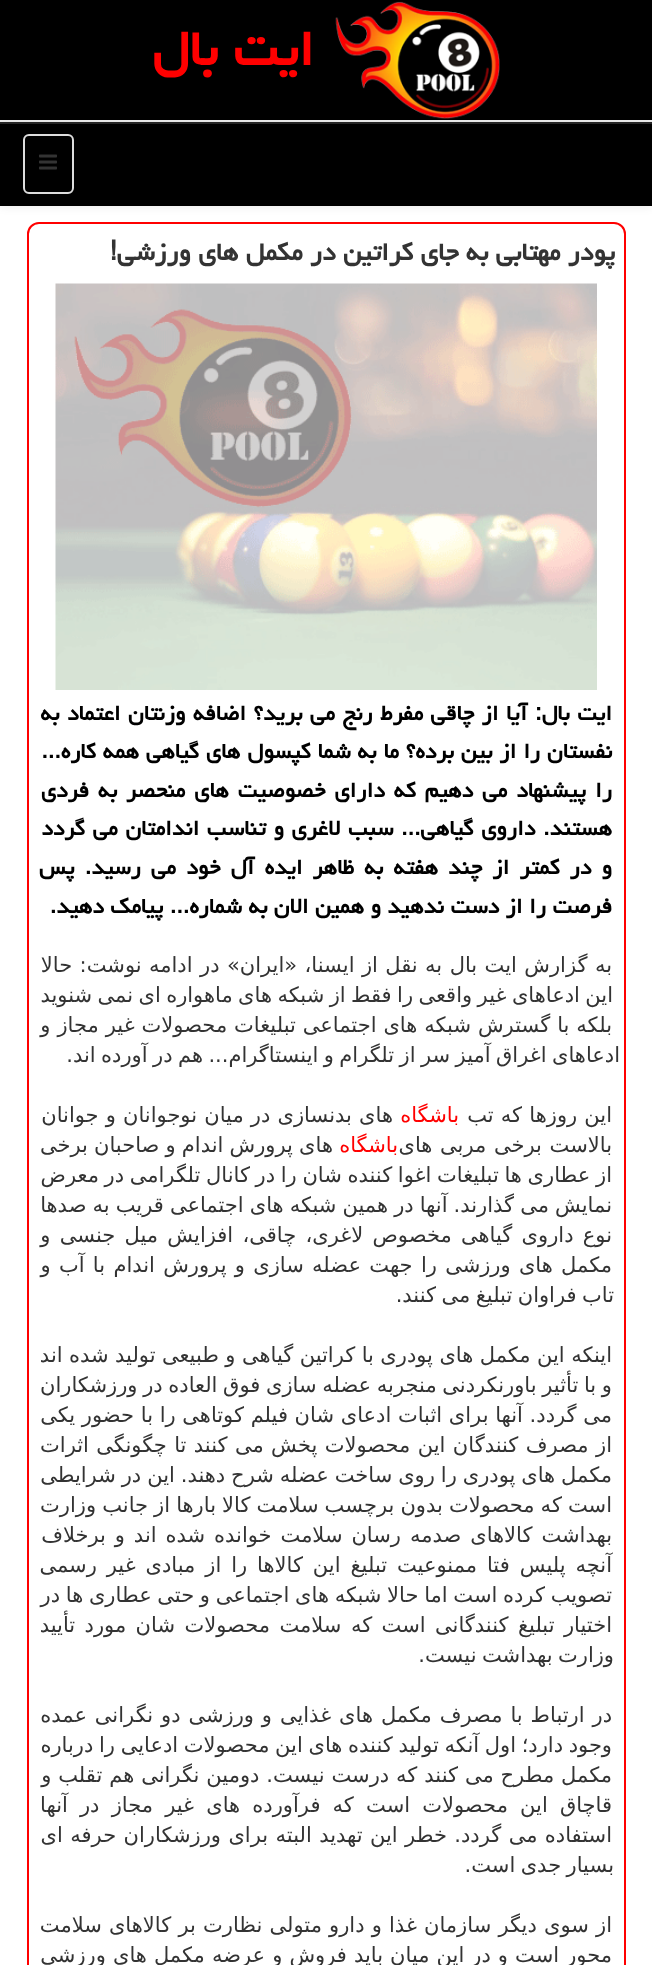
(async () => {
  const canvas = document.querySelector("canvas");
  canvas.width = 652;
  canvas.height = 1965;
  const ctx = canvas.getContext("2d");
  ctx.miterLimit = 4;
  ctx.fontKerning = "normal";
  async function loadImage(src) {
    const img = new Image();
    img.src = src;
    await img.decode();
    return img;
  }

  ctx.fillStyle = "#ffffff";
  ctx.fillRect(0, 0, 652, 1965);
  ctx.fillStyle = "#000000";
  ctx.fillRect(0, 0, 652, 120);
  ctx.fillStyle = "#eeeeee";
  ctx.fillRect(0, 120, 652, 2);
  ctx.drawImage(await loadImage("img/1.png"), 335, 1, 165, 118);
  ctx.fillStyle = "rgba(0, 0, 0, 0.07)";
  ctx.filter = "blur(4px)";
  ctx.beginPath();
  ctx.rect(0, 123, 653, 84);
  ctx.fill();
  ctx.filter = "none";
  ctx.fillStyle = "#000000";
  ctx.fillRect(0, 124, 652, 82);
  ctx.fillStyle = "#262626";
  ctx.fillRect(0, 122, 652, 2);
  ctx.beginPath();
  ctx.roundRect(24, 135, 49, 58, 5);
  ctx.strokeStyle = "#dddddd";
  ctx.lineWidth = 2;
  ctx.stroke();
  ctx.drawImage(await loadImage("img/2.png"), 39, 154, 18, 16);
  ctx.beginPath();
  ctx.roundRect(28, 223, 597, 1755, 11);
  ctx.strokeStyle = "#ff0000";
  ctx.stroke();
  ctx.drawImage(await loadImage("img/3.png"), 55, 283, 542, 407);
  ctx.direction = "rtl";
  ctx.font = "bold 63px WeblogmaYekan";
  ctx.fillStyle = "#ff0000";
  ctx.fillText("ایت بال", 314, 65);
  ctx.font = "bold 31.5px WeblogmaYekan";
  ctx.fillStyle = "#333333";
  ctx.fillText("پودر مهتابی به جای كراتین در مكمل های ورزشی!", 615, 260);
  ctx.wordSpacing = "1.1px";
  ctx.font = "bold 27px WeblogmaYekan";
  ctx.fillStyle = "#000000";
  ctx.fillText("ایت بال: آیا از چاقی مفرط رنج می برید؟ اضافه وزنتان اعتماد به", 612, 720);
  ctx.wordSpacing = "0.5px";
  ctx.fillText("نفستان را از بین برده؟ ما به شما كپسول های گیاهی همه كاره...", 612, 758);
  ctx.wordSpacing = "2.6px";
  ctx.fillText("را پیشنهاد می دهیم كه دارای خصوصیت های منحصر به فردی", 612, 797);
  ctx.wordSpacing = "1.25px";
  ctx.fillText("هستند. داروی گیاهی... سبب لاغری و تناسب اندامتان می گردد", 612, 835);
  ctx.wordSpacing = "3.75px";
  ctx.fillText("و در كمتر از چند هفته به ظاهر ایده آل خود می رسید. پس", 612, 874);
  ctx.wordSpacing = "0px";
  ctx.fillText("فرصت را از دست ندهید و همین الان به شماره... پیامك دهید.", 612, 913);
  ctx.wordSpacing = "0.75px";
  ctx.font = "21px DejaVu Sans";
  ctx.fillStyle = "#333333";
  ctx.fillText("به گزارش ایت بال به نقل از ایسنا، «ایران» در ادامه نوشت: حالا", 612, 972);
  ctx.wordSpacing = "-1.25px";
  ctx.fillText("این ادعاهای غیر واقعی را فقط از شبكه های ماهواره ای نمی شنوید", 613, 1002);
  ctx.wordSpacing = "0.25px";
  ctx.fillText("بلكه با گسترش شبكه های اجتماعی تبلیغات محصولات غیر مجاز و", 612, 1032);
  ctx.wordSpacing = "-1.25px";
  ctx.fillText("ادعاهای اغراق آمیز سر از تلگرام و اینستاگرام... هم در آورده اند.", 620, 1062);
  ctx.wordSpacing = "0.5px";
  ctx.fillText("این روزها كه تب", 612, 1122);
  ctx.wordSpacing = "0px";
  ctx.fillStyle = "#ff0000";
  ctx.fillText("باشگاه", 459, 1122);
  ctx.wordSpacing = "0.5px";
  ctx.fillStyle = "#333333";
  ctx.fillText("های بدنسازی در میان نوجوانان و جوانان", 393, 1122);
  ctx.wordSpacing = "1px";
  ctx.fillText("بالاست برخی مربی های", 612, 1152);
  ctx.wordSpacing = "0px";
  ctx.fillStyle = "#ff0000";
  ctx.fillText("باشگاه", 398, 1152);
  ctx.wordSpacing = "-0.5px";
  ctx.fillStyle = "#333333";
  ctx.fillText("های پرورش اندام و صاحبان برخی", 333, 1152);
  ctx.wordSpacing = "-1px";
  ctx.fillText("از عطاری ها تبلیغات اغوا كننده شان را در كانال تلگرامی در معرض", 612, 1182);
  ctx.wordSpacing = "-0.6px";
  ctx.fillText("نمایش می گذارند. آنها در همین شبكه های اجتماعی قریب به صدها", 612, 1212);
  ctx.wordSpacing = "2.6px";
  ctx.fillText("نوع داروی گیاهی مخصوص لاغری، چاقی، افزایش میل جنسی و", 612, 1242);
  ctx.wordSpacing = "1.6px";
  ctx.fillText("مكمل های ورزشی را جهت عضله سازی و پرورش اندام با آب و", 612, 1272);
  ctx.wordSpacing = "-1.25px";
  ctx.fillText("تاب فراوان تبلیغ می كنند.", 614, 1302);
  ctx.wordSpacing = "-0.25px";
  ctx.fillText("اینكه این مكمل های پودری با كراتین گیاهی و طبیعی تولید شده اند", 612, 1362);
  ctx.wordSpacing = "-1px";
  ctx.fillText("و با تأثیر باورنكردنی منجربه عضله سازی فوق العاده در ورزشكاران", 612, 1392);
  ctx.wordSpacing = "0px";
  ctx.fillText("می گردد. آنها برای اثبات ادعای شان فیلم كوتاهی را با حضور یكی", 612, 1422);
  ctx.wordSpacing = "0.75px";
  ctx.fillText("از مصرف كنندگان این محصولات پخش می كنند تا چگونگی اثرات", 612, 1452);
  ctx.wordSpacing = "-0.75px";
  ctx.fillText("مكمل های پودری را روی ساخت عضله شرح دهند. این در شرایطی", 612, 1482);
  ctx.wordSpacing = "-0.6px";
  ctx.fillText("است كه محصولات بدون برچسب سلامت كالا بارها از جانب وزارت", 612, 1512);
  ctx.wordSpacing = "2.25px";
  ctx.fillText("بهداشت كالاهای صدمه رسان سلامت خوانده شده اند و برخلاف", 612, 1542);
  ctx.wordSpacing = "3.25px";
  ctx.fillText("آنچه پلیس فتا ممنوعیت تبلیغ این كالاها را از مبادی غیر رسمی", 612, 1572);
  ctx.wordSpacing = "-1px";
  ctx.fillText("تصویب كرده است اما حالا شبكه های اجتماعی و حتی عطاری ها در", 612, 1602);
  ctx.wordSpacing = "2.75px";
  ctx.fillText("اختیار تبلیغ كنندگانی است كه سلامت محصولات شان مورد تأیید", 612, 1632);
  ctx.wordSpacing = "-1.25px";
  ctx.fillText("وزارت بهداشت نیست.", 614, 1662);
  ctx.wordSpacing = "1.25px";
  ctx.fillText("در ارتباط با مصرف مكمل های غذایی و ورزشی دو نگرانی عمده", 612, 1722);
  ctx.wordSpacing = "-1px";
  ctx.fillText("وجود دارد؛ اول آنكه تولید كننده های این محصولات ادعایی را درباره", 612, 1752);
  ctx.wordSpacing = "0.25px";
  ctx.fillText("مكمل مطرح می كنند كه درست نیست. دومین نگرانی هم تقلب و", 612, 1782);
  ctx.wordSpacing = "5.5px";
  ctx.fillText("قاچاق این محصولات است كه فرآورده های غیر مجاز در آنها", 612, 1812);
  ctx.wordSpacing = "0.75px";
  ctx.fillText("استفاده می گردد. خطر این تهدید البته برای ورزشكاران حرفه ای", 612, 1842);
  ctx.wordSpacing = "-1.25px";
  ctx.fillText("بسیار جدی است.", 614, 1872);
  ctx.wordSpacing = "0.5px";
  ctx.fillText("از سوی دیگر سازمان غذا و دارو متولی نظارت بر كالاهای سلامت", 612, 1932);
  ctx.wordSpacing = "0.4px";
  ctx.fillText("محور است و در این میان باید فروش و عرضه مكمل های ورزشی", 612, 1962);
})();
